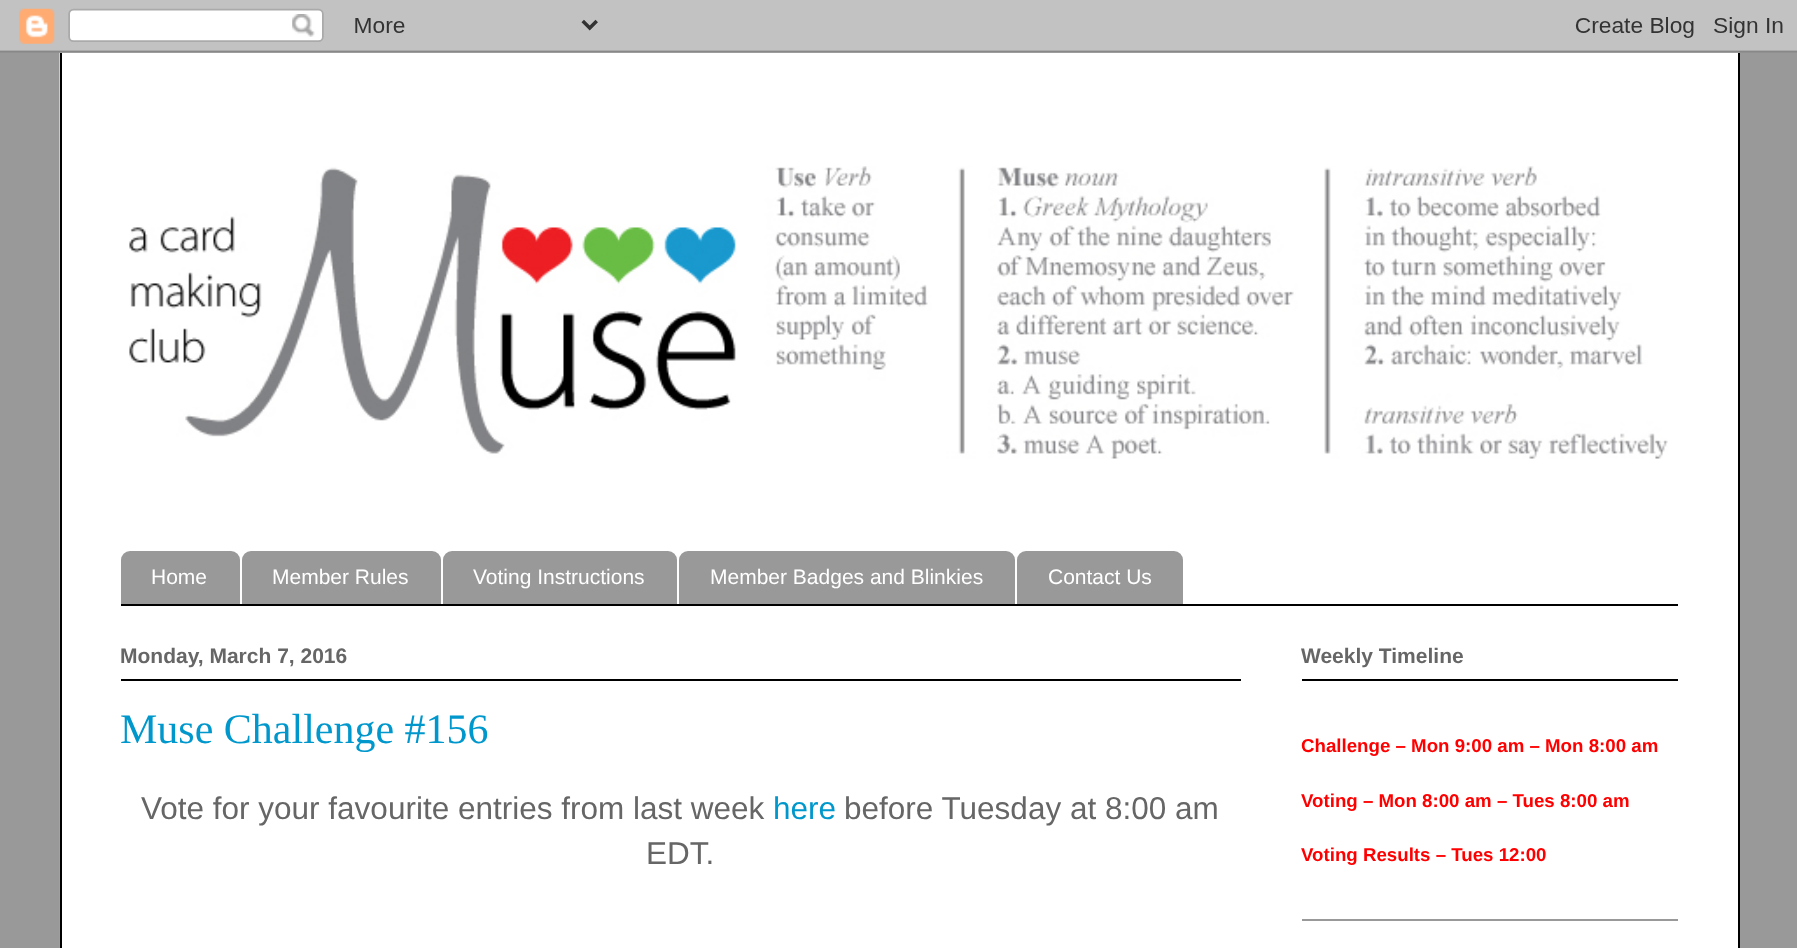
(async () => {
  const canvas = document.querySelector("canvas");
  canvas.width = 1797;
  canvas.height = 948;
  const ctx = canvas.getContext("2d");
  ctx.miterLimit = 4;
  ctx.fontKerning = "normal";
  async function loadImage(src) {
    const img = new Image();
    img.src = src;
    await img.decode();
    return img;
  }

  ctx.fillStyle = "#999999";
  ctx.fillRect(0, 0, 1797, 948);
  ctx.fillStyle = "#ffffff";
  ctx.fillRect(62, 64, 1676, 884);
  ctx.drawImage(await loadImage("img/2.png"), 59, 52, 1681, 896);
  ctx.drawImage(await loadImage("img/1.png"), 0, 0, 1797, 53);
  ctx.fillStyle = "#000000";
  ctx.fillRect(1738, 53, 2, 895);
  ctx.fillRect(60, 53, 2, 895);
  ctx.drawImage(await loadImage("img/3.png"), 129, 166, 1539, 293);
  ctx.fillRect(121, 604, 1557, 2);
  ctx.fillStyle = "#999999";
  ctx.beginPath();
  ctx.roundRect(121, 551, 119, 53, [9, 9, 0, 0]);
  ctx.fill();
  ctx.beginPath();
  ctx.roundRect(242, 551, 199, 53, [9, 9, 0, 0]);
  ctx.fill();
  ctx.beginPath();
  ctx.roundRect(443, 551, 234, 53, [9, 9, 0, 0]);
  ctx.fill();
  ctx.beginPath();
  ctx.roundRect(679, 551, 336, 53, [9, 9, 0, 0]);
  ctx.fill();
  ctx.beginPath();
  ctx.roundRect(1017, 551, 166, 53, [9, 9, 0, 0]);
  ctx.fill();
  for (const [x, y, w, h, color] of [
    [121, 679, 1120, 2, "#000000"],
    [1302, 919, 376, 2, "#999999"],
    [1302, 679, 376, 2, "#000000"],
  ]) {
    ctx.fillStyle = color;
    ctx.fillRect(x, y, w, h);
  }
  ctx.font = "21px Liberation Sans";
  ctx.fillStyle = "#ffffff";
  for (const [text, x, y] of [
    ["Home", 151, 584],
    ["Member Rules", 272, 584],
    ["Voting Instructions", 473, 584],
    ["Member Badges and Blinkies", 710, 584],
    ["Contact Us", 1048, 584],
  ]) {
    ctx.fillText(text, x, y);
  }
  ctx.font = "bold 21px Liberation Sans";
  ctx.fillStyle = "#666666";
  ctx.fillText("Monday, March 7, 2016", 120, 663);
  ctx.font = "42px Liberation Serif";
  ctx.fillStyle = "#0098cc";
  ctx.fillText("Muse Challenge #156", 120, 743);
  ctx.font = "31.5px Liberation Sans";
  ctx.fillStyle = "#666666";
  ctx.fillText("Vote for your favourite entries from last week", 141, 819);
  ctx.fillStyle = "#0098cc";
  ctx.fillText("here", 773, 819);
  ctx.fillStyle = "#666666";
  ctx.fillText("before Tuesday at 8:00 am", 844, 819);
  ctx.fillText("EDT.", 646, 864);
  ctx.font = "bold 21px Liberation Sans";
  ctx.fillText("Weekly Timeline", 1301, 663);
  ctx.font = "bold 18.7px Liberation Sans";
  ctx.fillStyle = "#ff0000";
  for (const [text, x, y] of [
    ["Challenge – Mon 9:00 am – Mon 8:00 am", 1301, 752],
    ["Voting – Mon 8:00 am – Tues 8:00 am", 1301, 807],
    ["Voting Results – Tues 12:00", 1301, 861],
  ]) {
    ctx.fillText(text, x, y);
  }
})();
